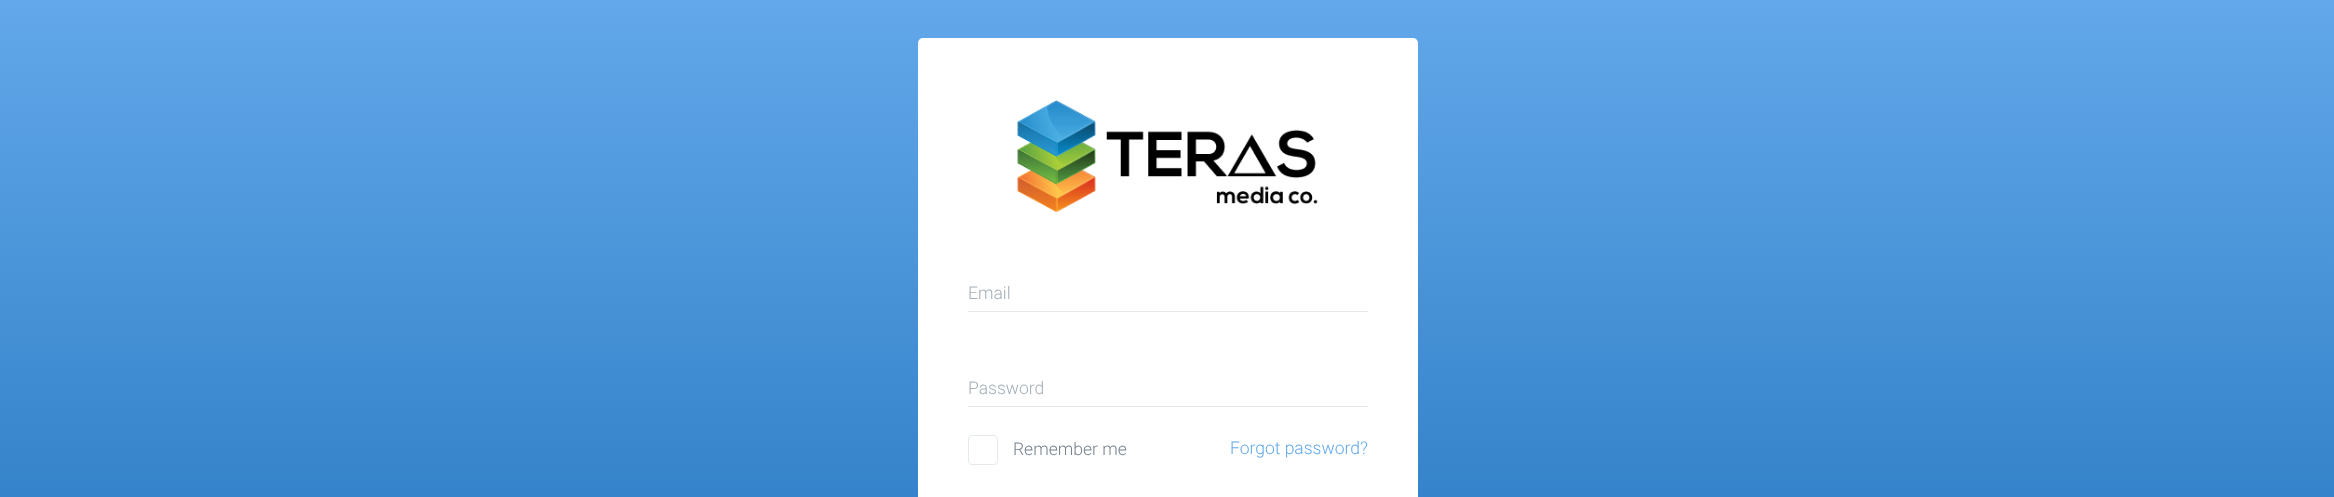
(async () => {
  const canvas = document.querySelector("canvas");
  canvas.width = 2334;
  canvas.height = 497;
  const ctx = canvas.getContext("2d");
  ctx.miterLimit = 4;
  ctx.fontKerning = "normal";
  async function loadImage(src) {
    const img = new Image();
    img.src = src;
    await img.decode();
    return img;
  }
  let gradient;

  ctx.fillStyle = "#ffffff";
  ctx.fillRect(0, 0, 2334, 497);
  gradient = ctx.createLinearGradient(1168, 0, 1168, 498);
  gradient.addColorStop(0, "#62a8ea");
  gradient.addColorStop(1, "#3583ca");
  ctx.fillStyle = gradient;
  ctx.fillRect(0, 0, 2334, 497);
  ctx.fillStyle = "#ffffff";
  ctx.beginPath();
  ctx.roundRect(918, 38, 500, 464, 5);
  ctx.fill();
  ctx.drawImage(await loadImage("img/1.png"), 1017, 100, 301, 113);
  ctx.fillStyle = "#e4eaec";
  ctx.fillRect(968, 311, 400, 1);
  ctx.fillRect(968, 406, 400, 1);
  ctx.beginPath();
  ctx.roundRect(968.5, 435.5, 29, 29, 3.5);
  ctx.strokeStyle = "#e4eaec";
  ctx.stroke();
  ctx.font = "300 17.5px Roboto";
  ctx.fillStyle = "#a3afb7";
  ctx.fillText("Email", 968, 299);
  ctx.fillText("Password", 968, 394);
  ctx.fillStyle = "#76838f";
  ctx.fillText("Remember me", 1013, 455);
  ctx.fillStyle = "#62a8ea";
  ctx.fillText("Forgot password?", 1230, 454);
})();
